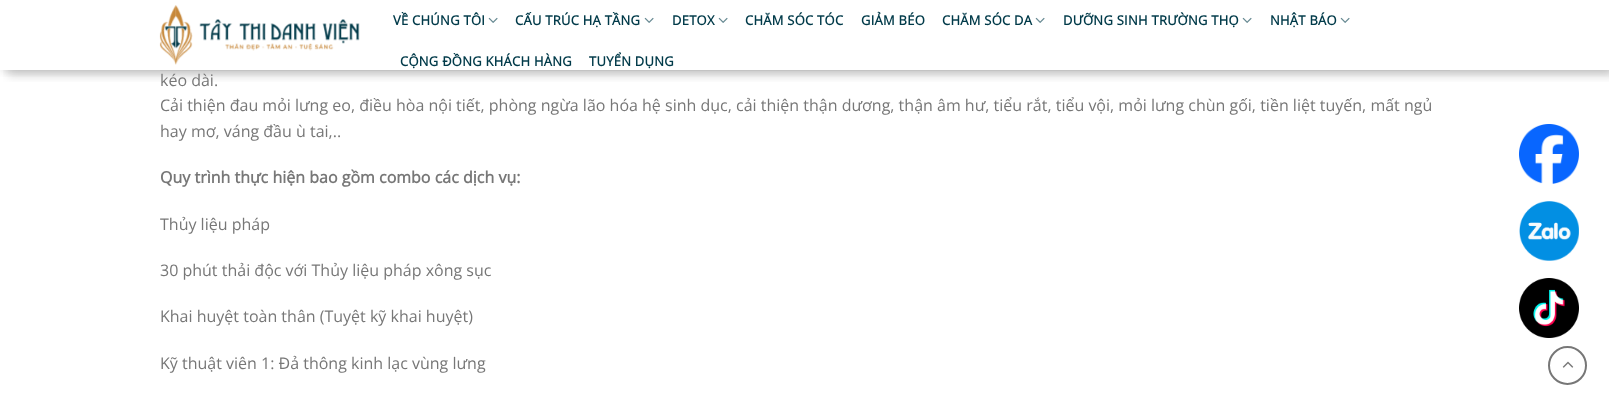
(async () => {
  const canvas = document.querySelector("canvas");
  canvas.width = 1609;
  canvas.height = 405;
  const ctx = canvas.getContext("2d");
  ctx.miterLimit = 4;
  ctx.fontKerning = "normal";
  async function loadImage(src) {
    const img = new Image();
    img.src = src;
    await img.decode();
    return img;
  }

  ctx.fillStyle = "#ffffff";
  ctx.fillRect(0, 0, 1609, 405);
  ctx.save();
  ctx.beginPath();
  ctx.rect(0, 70, 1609, 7);
  ctx.clip();
  ctx.fillStyle = "rgba(0, 0, 0, 0.15)";
  ctx.filter = "blur(5px)";
  ctx.beginPath();
  ctx.rect(1, 1, 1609, 70);
  ctx.fill();
  ctx.filter = "none";
  ctx.restore();
  ctx.save();
  ctx.beginPath();
  ctx.rect(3, 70, 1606, 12);
  ctx.clip();
  ctx.fillStyle = "rgba(0, 0, 0, 0.15)";
  ctx.filter = "blur(5px)";
  ctx.beginPath();
  ctx.rect(8, 6, 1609, 70);
  ctx.fill();
  ctx.filter = "none";
  ctx.restore();
  ctx.drawImage(await loadImage("img/1.png"), 159, 5, 201, 60);
  ctx.drawImage(await loadImage("img/2.png"), 488, 17, 10, 6);
  ctx.drawImage(await loadImage("img/3.png"), 644, 17, 10, 6);
  ctx.drawImage(await loadImage("img/3.png"), 718, 17, 10, 6);
  ctx.drawImage(await loadImage("img/3.png"), 1035, 17, 10, 6);
  ctx.drawImage(await loadImage("img/3.png"), 1242, 17, 10, 6);
  ctx.drawImage(await loadImage("img/3.png"), 1340, 17, 10, 6);
  ctx.fillStyle = "#c3c3c3";
  ctx.fillRect(160, 70, 1290, 1);
  ctx.beginPath();
  ctx.arc(1567.5, 365.5, 18.5, 0, Math.PI * 2);
  ctx.strokeStyle = "#777777";
  ctx.lineWidth = 2;
  ctx.stroke();
  ctx.drawImage(await loadImage("img/4.png"), 1562, 361, 12, 7);
  ctx.drawImage(await loadImage("img/5.png"), 1519, 124, 60, 60);
  ctx.drawImage(await loadImage("img/6.png"), 1519, 201, 60, 60);
  ctx.drawImage(await loadImage("img/7.png"), 1519, 278, 60, 60);
  ctx.letterSpacing = "0.25px";
  ctx.font = "bold 13px Open Sans";
  ctx.fillStyle = "#003a49";
  for (const [text, x, y] of [
    ["VỀ CHÚNG TÔI", 393, 25],
    ["CẤU TRÚC HẠ TẦNG", 515, 25],
    ["DETOX", 672, 25],
    ["CHĂM SÓC TÓC", 745, 25],
    ["GIẢM BÉO", 861, 25],
    ["CHĂM SÓC DA", 942, 25],
    ["DƯỠNG SINH TRƯỜNG THỌ", 1063, 25],
    ["NHẬT BÁO", 1270, 25],
    ["CỘNG ĐỒNG KHÁCH HÀNG", 400, 66],
    ["TUYỂN DỤNG", 589, 66],
  ]) {
    ctx.fillText(text, x, y);
  }
  ctx.letterSpacing = "0px";
  ctx.font = "16px Open Sans";
  ctx.fillStyle = "#777777";
  for (const [text, x, y] of [
    ["kéo dài.", 160, 86],
    ["Cải thiện đau mỏi lưng eo, điều hòa nội tiết, phòng ngừa lão hóa hệ sinh dục, cải thiện thận dương, thận âm hư, tiểu rắt, tiểu vội, mỏi lưng chùn gối, tiền liệt tuyến, mất ngủ", 160, 111],
    ["hay mơ, váng đầu ù tai,..", 160, 137],
  ]) {
    ctx.fillText(text, x, y);
  }
  ctx.font = "bold 16px Open Sans";
  ctx.fillText("Quy trình thực hiện bao gồm combo các dịch vụ:", 160, 183);
  ctx.font = "16px Open Sans";
  for (const [text, x, y] of [
    ["Thủy liệu pháp", 160, 230],
    ["30 phút thải độc với Thủy liệu pháp xông sục", 160, 276],
    ["Khai huyệt toàn thân (Tuyệt kỹ khai huyệt)", 160, 322],
    ["Kỹ thuật viên 1: Đả thông kinh lạc vùng lưng", 160, 369],
  ]) {
    ctx.fillText(text, x, y);
  }
})();
